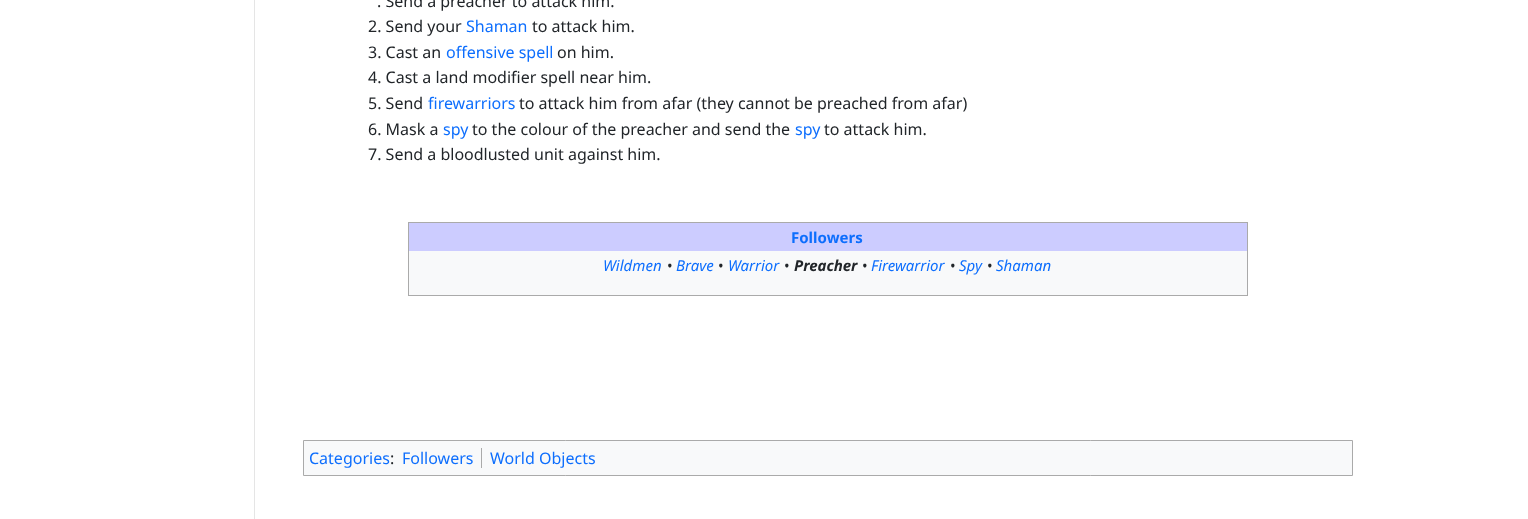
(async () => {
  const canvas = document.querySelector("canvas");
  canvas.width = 1528;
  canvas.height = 519;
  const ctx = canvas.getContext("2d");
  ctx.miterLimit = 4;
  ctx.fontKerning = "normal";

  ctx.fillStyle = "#ffffff";
  ctx.fillRect(0, 0, 1528, 519);
  for (const [x, y, w, h, color] of [
    [254, 0, 1, 519, "#e5e5e5"],
    [409, 251, 838, 44, "#f8f9fa"],
    [408, 222, 840, 1, "#aaaaaa"],
    [1247, 222, 1, 74, "#aaaaaa"],
    [408, 295, 840, 1, "#aaaaaa"],
    [408, 222, 1, 74, "#aaaaaa"],
    [409, 223, 838, 28, "#ccccff"],
  ]) {
    ctx.fillStyle = color;
    ctx.fillRect(x, y, w, h);
  }
  ctx.fillStyle = "#f8f9fa";
  ctx.beginPath();
  ctx.rect(303.5, 440.5, 1049, 35);
  ctx.fill();
  ctx.strokeStyle = "#aaaaaa";
  ctx.stroke();
  ctx.fillStyle = "#aaaaaa";
  ctx.fillRect(481, 448, 1, 20);
  ctx.font = "16px Noto Sans";
  ctx.fillStyle = "#212529";
  ctx.fillText(". Send a preacher to attack him.", 377, 7);
  ctx.fillText("2. Send your", 368, 32);
  ctx.fillStyle = "#0d6efd";
  ctx.fillText("Shaman", 466, 32);
  ctx.fillStyle = "#212529";
  ctx.fillText("to attack him.", 532, 32);
  ctx.fillText("3. Cast an", 368, 58);
  ctx.fillStyle = "#0d6efd";
  ctx.fillText("offensive spell", 446, 58);
  ctx.fillStyle = "#212529";
  for (const [text, x, y] of [
    ["on him.", 557, 58],
    ["4. Cast a land modifier spell near him.", 368, 83],
    ["5. Send", 368, 109],
  ]) {
    ctx.fillText(text, x, y);
  }
  ctx.fillStyle = "#0d6efd";
  ctx.fillText("firewarriors", 428, 109);
  ctx.fillStyle = "#212529";
  ctx.fillText("to attack him from afar (they cannot be preached from afar)", 519, 109);
  ctx.fillText("6. Mask a", 368, 135);
  ctx.fillStyle = "#0d6efd";
  ctx.fillText("spy", 443, 135);
  ctx.fillStyle = "#212529";
  ctx.fillText("to the colour of the preacher and send the", 472, 135);
  ctx.fillStyle = "#0d6efd";
  ctx.fillText("spy", 795, 135);
  ctx.fillStyle = "#212529";
  ctx.fillText("to attack him.", 824, 135);
  ctx.fillText("7. Send a bloodlusted unit against him.", 368, 160);
  ctx.font = "bold 15px Noto Sans";
  ctx.fillStyle = "#0d6efd";
  ctx.fillText("Followers", 791, 243);
  ctx.font = "italic 15px Noto Sans";
  ctx.fillText("Wildmen", 603, 271);
  ctx.font = "15px Noto Sans";
  ctx.fillStyle = "#212529";
  ctx.fillText("•", 667, 271);
  ctx.font = "italic 15px Noto Sans";
  ctx.fillStyle = "#0d6efd";
  ctx.fillText("Brave", 676, 271);
  ctx.font = "15px Noto Sans";
  ctx.fillStyle = "#212529";
  ctx.fillText("•", 718, 271);
  ctx.font = "italic 15px Noto Sans";
  ctx.fillStyle = "#0d6efd";
  ctx.fillText("Warrior", 728, 271);
  ctx.font = "15px Noto Sans";
  ctx.fillStyle = "#212529";
  ctx.fillText("•", 784, 271);
  ctx.font = "italic bold 15px Noto Sans";
  ctx.fillText("Preacher", 794, 271);
  ctx.font = "15px Noto Sans";
  ctx.fillText("•", 862, 271);
  ctx.font = "italic 15px Noto Sans";
  ctx.fillStyle = "#0d6efd";
  ctx.fillText("Firewarrior", 871, 271);
  ctx.font = "15px Noto Sans";
  ctx.fillStyle = "#212529";
  ctx.fillText("•", 950, 271);
  ctx.font = "italic 15px Noto Sans";
  ctx.fillStyle = "#0d6efd";
  ctx.fillText("Spy", 959, 271);
  ctx.font = "15px Noto Sans";
  ctx.fillStyle = "#212529";
  ctx.fillText("•", 987, 271);
  ctx.font = "italic 15px Noto Sans";
  ctx.fillStyle = "#0d6efd";
  ctx.fillText("Shaman", 996, 271);
  ctx.font = "16px Noto Sans";
  ctx.fillText("Categories", 309, 464);
  ctx.fillStyle = "#212529";
  ctx.fillText(":", 390, 464);
  ctx.fillStyle = "#0d6efd";
  ctx.fillText("Followers", 402, 464);
  ctx.fillText("World Objects", 490, 464);
})();
